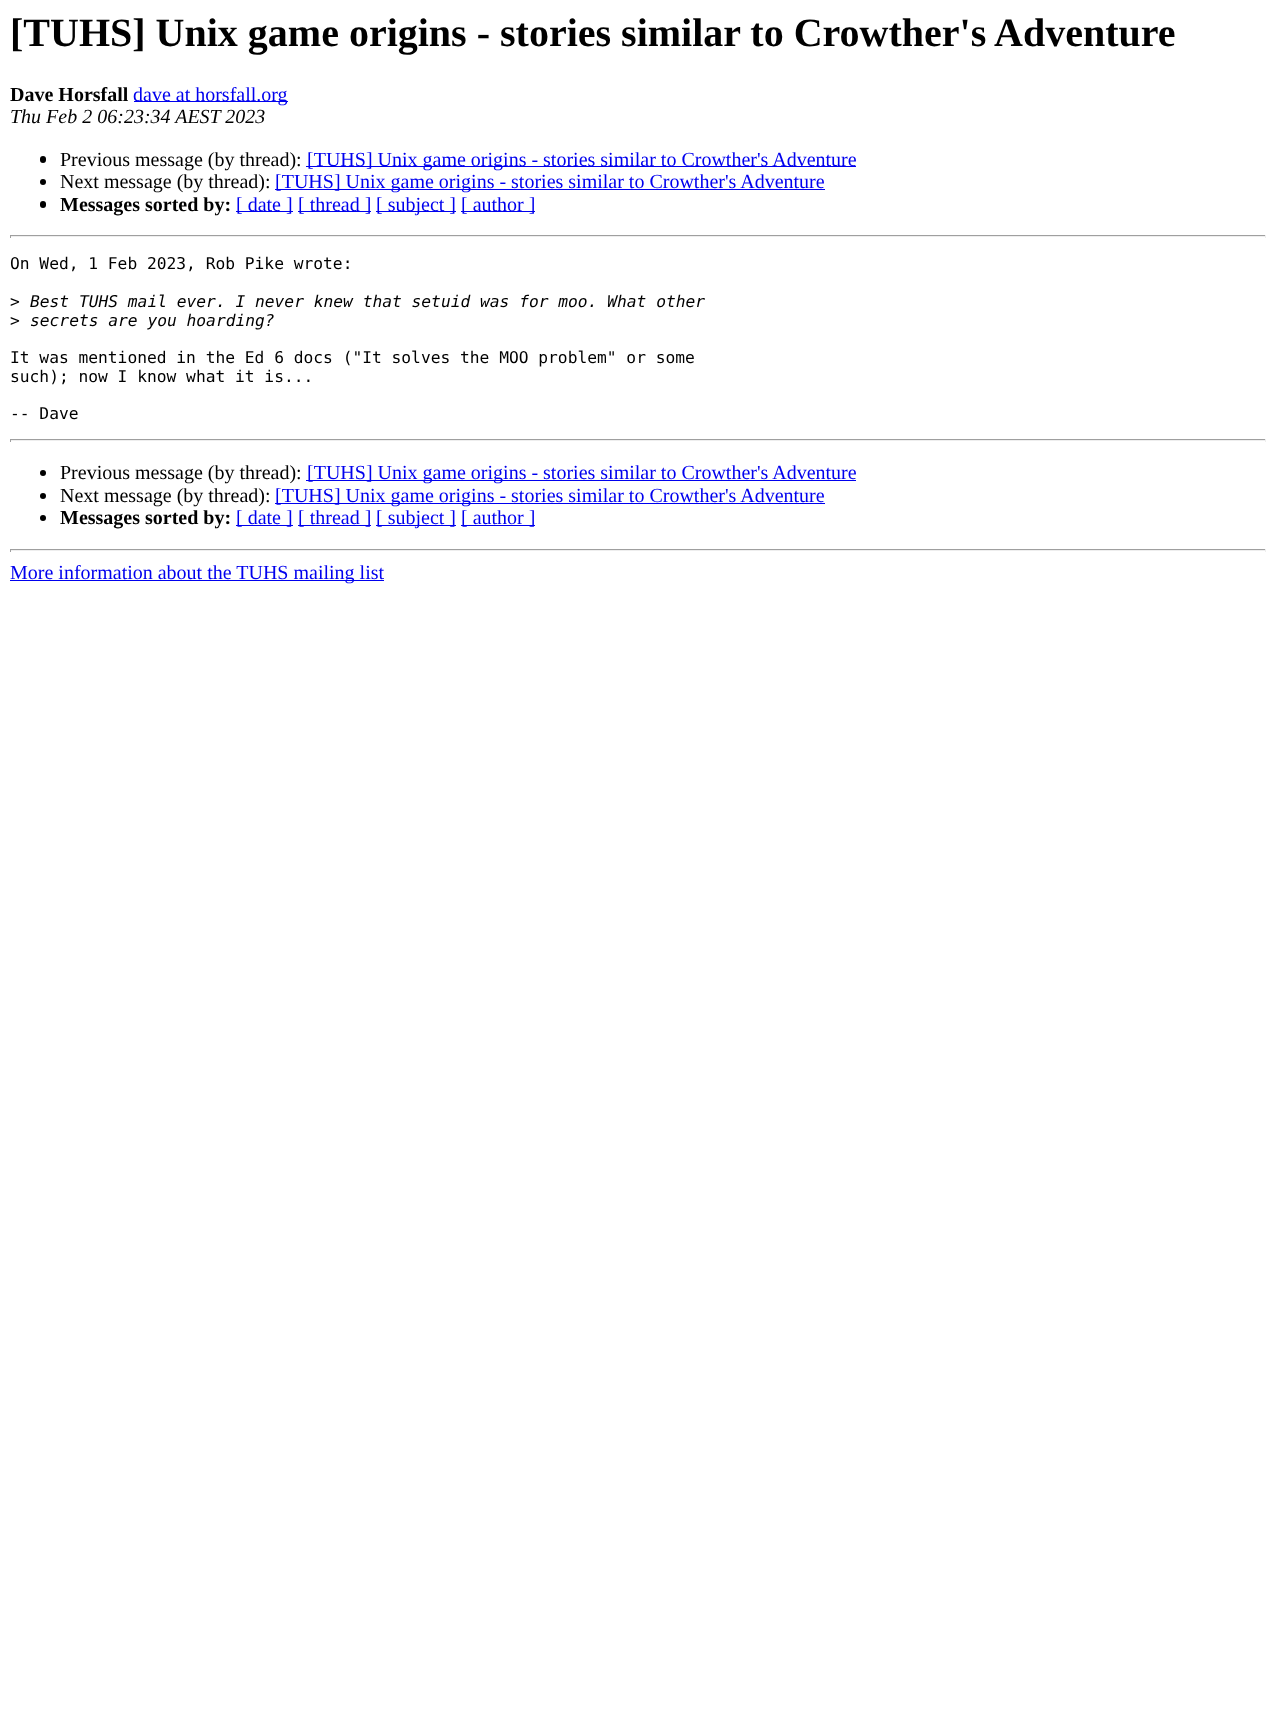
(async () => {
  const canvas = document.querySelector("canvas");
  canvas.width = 1276;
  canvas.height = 1721;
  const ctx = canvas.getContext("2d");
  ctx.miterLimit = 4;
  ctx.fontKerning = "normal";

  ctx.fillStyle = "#ffffff";
  ctx.fillRect(0, 0, 1276, 1721);
  ctx.fillStyle = "#0000ee";
  ctx.fillRect(134, 101, 154, 1);
  ctx.fillStyle = "#000000";
  ctx.beginPath();
  ctx.roundRect(40, 156, 6, 7, 3);
  ctx.fill();
  ctx.fillStyle = "#0000ee";
  ctx.fillRect(306, 166, 550, 1);
  ctx.fillStyle = "#000000";
  ctx.beginPath();
  ctx.arc(43, 182, 3, 0, Math.PI * 2);
  ctx.fill();
  ctx.fillStyle = "#0000ee";
  ctx.fillRect(275, 189, 550, 1);
  ctx.fillStyle = "#000000";
  ctx.beginPath();
  ctx.roundRect(40, 201, 6, 7, 3);
  ctx.fill();
  for (const [x, y, w, h, color] of [
    [236, 211, 57, 1, "#0000ee"],
    [298, 211, 73, 1, "#0000ee"],
    [376, 211, 80, 1, "#0000ee"],
    [461, 211, 74, 1, "#0000ee"],
    [10, 235, 1256, 1, "#9f9f9f"],
    [1265, 235, 1, 3, "#eeeeee"],
    [10, 236, 1256, 1, "#eeeeee"],
    [10, 235, 1, 3, "#9f9f9f"],
    [10, 439, 1256, 1, "#9f9f9f"],
    [1265, 439, 1, 3, "#eeeeee"],
    [10, 440, 1256, 1, "#eeeeee"],
    [10, 439, 1, 3, "#9f9f9f"],
  ]) {
    ctx.fillStyle = color;
    ctx.fillRect(x, y, w, h);
  }
  ctx.fillStyle = "#000000";
  ctx.beginPath();
  ctx.arc(43, 473, 3, 0, Math.PI * 2);
  ctx.fill();
  ctx.fillStyle = "#0000ee";
  ctx.fillRect(306, 480, 550, 1);
  ctx.fillStyle = "#000000";
  ctx.beginPath();
  ctx.arc(43, 496, 3, 0, Math.PI * 2);
  ctx.fill();
  ctx.fillStyle = "#0000ee";
  ctx.fillRect(275, 503, 550, 1);
  ctx.fillStyle = "#000000";
  ctx.beginPath();
  ctx.arc(43, 518, 3, 0, Math.PI * 2);
  ctx.fill();
  for (const [x, y, w, h, color] of [
    [236, 525, 57, 1, "#0000ee"],
    [298, 525, 73, 1, "#0000ee"],
    [376, 525, 80, 1, "#0000ee"],
    [461, 525, 74, 1, "#0000ee"],
    [10, 549, 1256, 1, "#9f9f9f"],
    [1265, 549, 1, 3, "#eeeeee"],
    [10, 550, 1256, 1, "#eeeeee"],
    [10, 549, 1, 3, "#9f9f9f"],
    [10, 580, 374, 1, "#0000ee"],
  ]) {
    ctx.fillStyle = color;
    ctx.fillRect(x, y, w, h);
  }
  ctx.font = "bold 40px Liberation Serif";
  ctx.fillStyle = "#000000";
  ctx.fillText("[TUHS] Unix game origins - stories similar to Crowther's Adventure", 10, 46);
  ctx.font = "bold 20px Liberation Serif";
  ctx.fillText("Dave Horsfall", 10, 101);
  ctx.font = "20px Liberation Serif";
  ctx.fillStyle = "#0000ee";
  ctx.fillText("dave at horsfall.org", 133, 101);
  ctx.font = "italic 20px Liberation Serif";
  ctx.fillStyle = "#000000";
  ctx.fillText("Thu Feb 2 06:23:34 AEST 2023", 10, 123);
  ctx.font = "20px Liberation Serif";
  ctx.fillText("Previous message (by thread):", 60, 166);
  ctx.fillStyle = "#0000ee";
  ctx.fillText("[TUHS] Unix game origins - stories similar to Crowther's Adventure", 307, 166);
  ctx.fillStyle = "#000000";
  ctx.fillText("Next message (by thread):", 60, 188);
  ctx.fillStyle = "#0000ee";
  ctx.fillText("[TUHS] Unix game origins - stories similar to Crowther's Adventure", 275, 188);
  ctx.font = "bold 20px Liberation Serif";
  ctx.fillStyle = "#000000";
  ctx.fillText("Messages sorted by:", 60, 211);
  ctx.font = "20px Liberation Serif";
  ctx.fillStyle = "#0000ee";
  for (const [text, x, y] of [
    ["[ date ]", 236, 211],
    ["[ thread ]", 298, 211],
    ["[ subject ]", 376, 211],
    ["[ author ]", 461, 211],
  ]) {
    ctx.fillText(text, x, y);
  }
  ctx.font = "16.25px DejaVu Sans Mono";
  ctx.fillStyle = "#000000";
  ctx.fillText("On Wed, 1 Feb 2023, Rob Pike wrote:", 10, 269);
  ctx.fillText(">", 10, 307);
  ctx.font = "italic 16.25px DejaVu Sans Mono";
  ctx.fillText("Best TUHS mail ever. I never knew that setuid was for moo. What other", 30, 307);
  ctx.font = "16.25px DejaVu Sans Mono";
  ctx.fillText(">", 10, 326);
  ctx.font = "italic 16.25px DejaVu Sans Mono";
  ctx.fillText("secrets are you hoarding?", 30, 326);
  ctx.font = "16.25px DejaVu Sans Mono";
  for (const [text, x, y] of [
    ["It was mentioned in the Ed 6 docs (\"It solves the MOO problem\" or some", 10, 363],
    ["such); now I know what it is...", 10, 382],
    ["-- Dave", 10, 419],
  ]) {
    ctx.fillText(text, x, y);
  }
  ctx.font = "20px Liberation Serif";
  ctx.fillText("Previous message (by thread):", 60, 479);
  ctx.fillStyle = "#0000ee";
  ctx.fillText("[TUHS] Unix game origins - stories similar to Crowther's Adventure", 307, 479);
  ctx.fillStyle = "#000000";
  ctx.fillText("Next message (by thread):", 60, 502);
  ctx.fillStyle = "#0000ee";
  ctx.fillText("[TUHS] Unix game origins - stories similar to Crowther's Adventure", 275, 502);
  ctx.font = "bold 20px Liberation Serif";
  ctx.fillStyle = "#000000";
  ctx.fillText("Messages sorted by:", 60, 524);
  ctx.font = "20px Liberation Serif";
  ctx.fillStyle = "#0000ee";
  for (const [text, x, y] of [
    ["[ date ]", 236, 524],
    ["[ thread ]", 298, 524],
    ["[ subject ]", 376, 524],
    ["[ author ]", 461, 524],
    ["More information about the TUHS mailing list", 10, 579],
  ]) {
    ctx.fillText(text, x, y);
  }
})();
